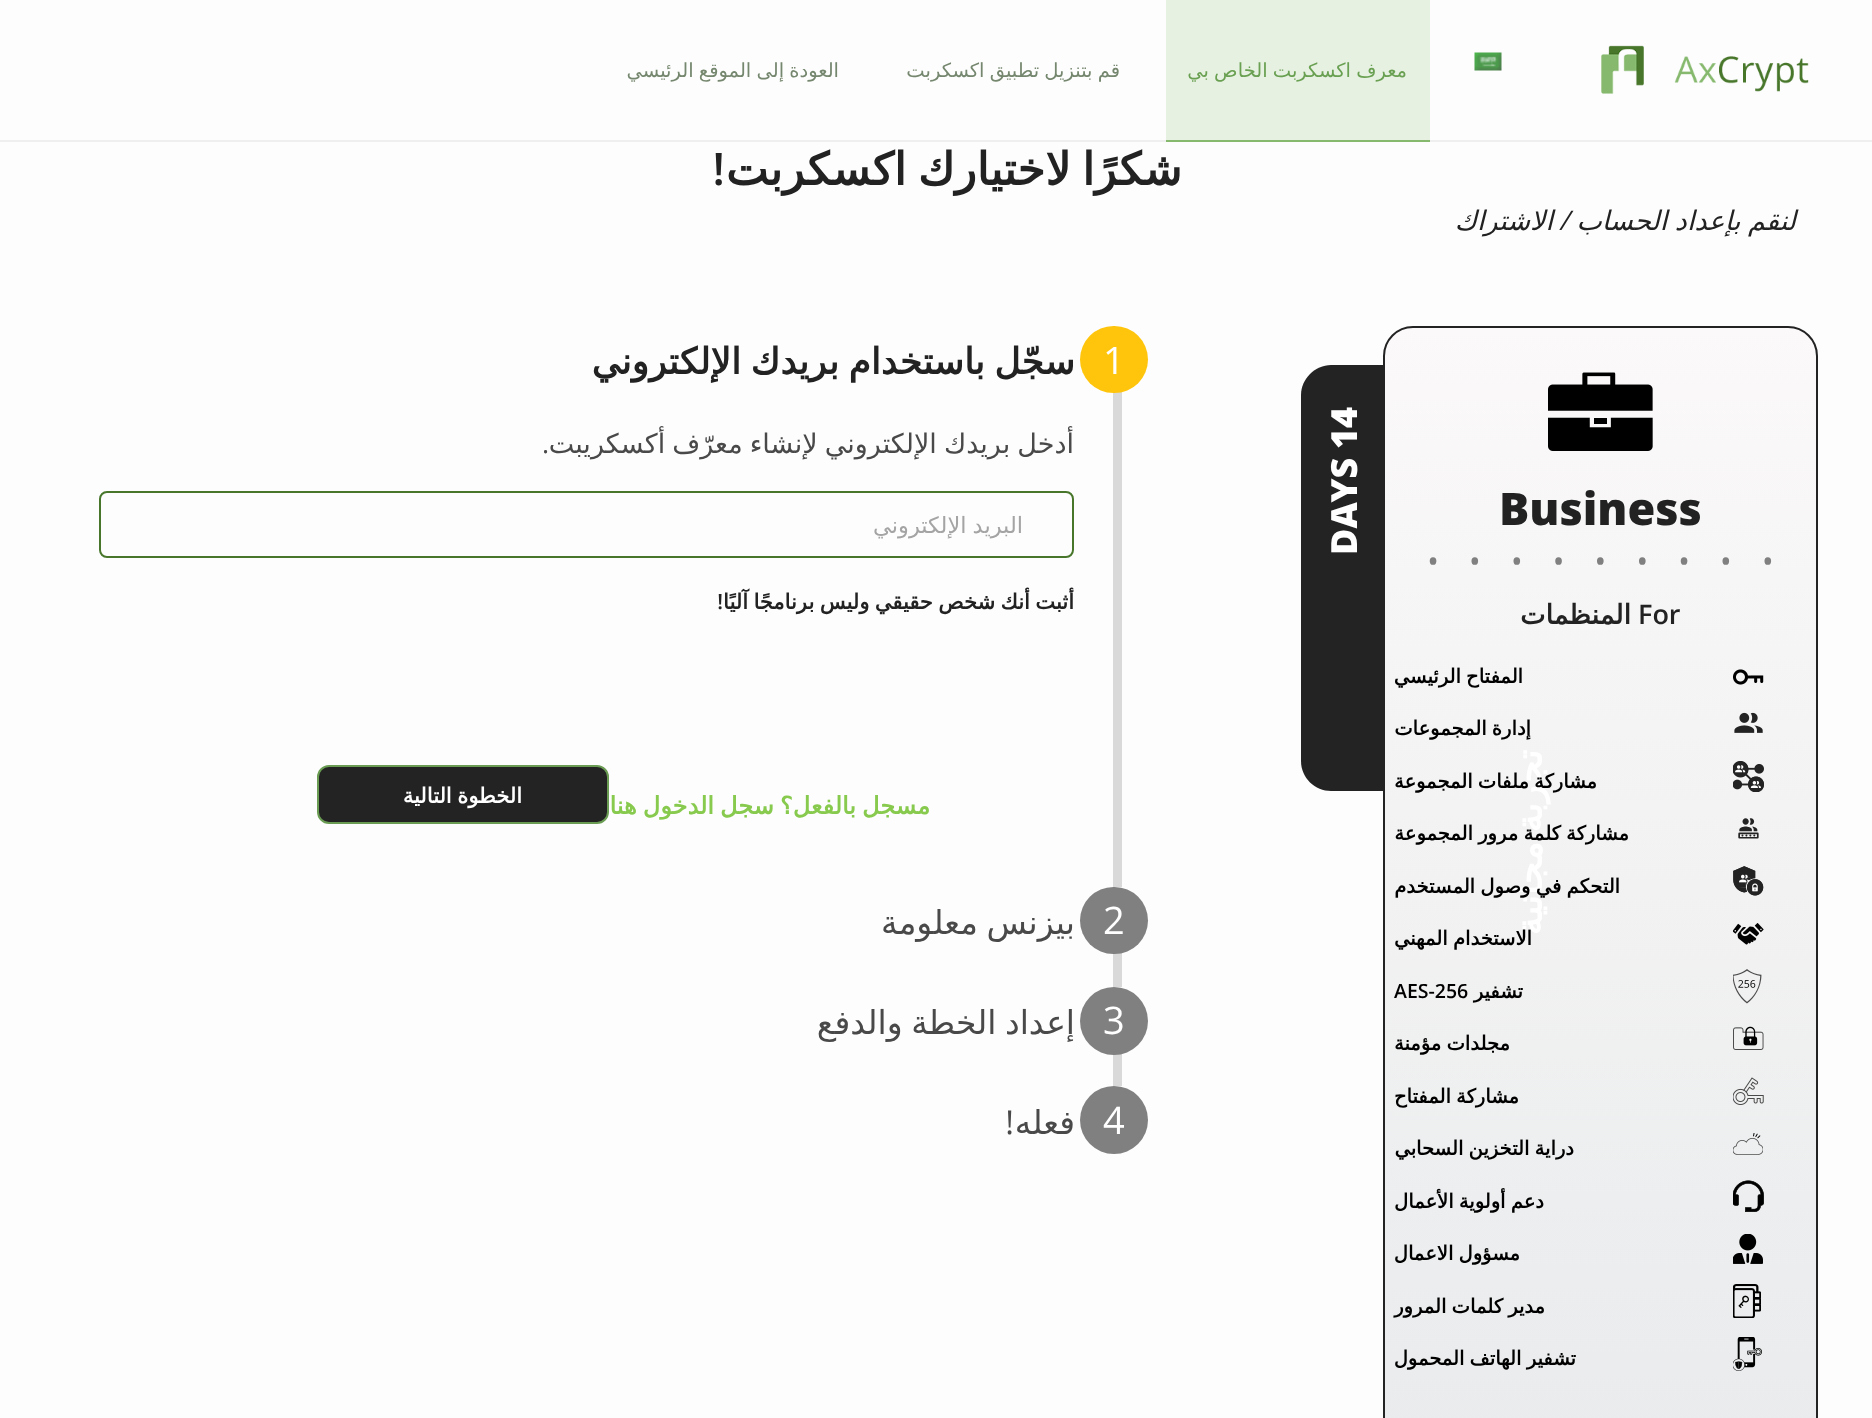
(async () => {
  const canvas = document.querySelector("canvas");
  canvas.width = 1872;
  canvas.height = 1418;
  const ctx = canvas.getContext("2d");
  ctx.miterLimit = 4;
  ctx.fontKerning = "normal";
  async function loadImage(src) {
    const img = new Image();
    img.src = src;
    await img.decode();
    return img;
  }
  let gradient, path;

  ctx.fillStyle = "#fdfdfd";
  ctx.fillRect(0, 0, 1872, 1418);
  ctx.fillStyle = "#e7f1e2";
  ctx.fillRect(1166, 0, 264, 140);
  ctx.fillStyle = "#efefef";
  ctx.fillRect(0, 140, 1872, 2);
  ctx.drawImage(await loadImage("img/1.png"), 1601, 45, 208, 49);
  ctx.drawImage(await loadImage("img/2.png"), 1474, 52, 28, 19);
  ctx.fillStyle = "#86b96e";
  ctx.fillRect(1166, 140, 264, 2);
  ctx.fillStyle = "#232323";
  path = new Path2D("M1301 761V395C1301 379 1315 365 1331 365H1384V791H1331C1315 791 1301 778 1301 761Z");
  ctx.fill(path);
  ctx.save();
  ctx.beginPath();
  ctx.roundRect(1383, 326, 435, 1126, 30);
  ctx.clip();
  gradient = ctx.createLinearGradient(1601, 327, 1601, 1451);
  gradient.addColorStop(0, "#fbf9f9");
  gradient.addColorStop(1, "#e9ebec");
  ctx.fillStyle = gradient;
  ctx.fillRect(1383, 327, 435, 1091);
  ctx.restore();
  ctx.beginPath();
  ctx.roundRect(1384, 327, 433, 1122, 29);
  ctx.strokeStyle = "#232323";
  ctx.lineWidth = 2;
  ctx.stroke();
  ctx.drawImage(await loadImage("img/3.png"), 1548, 372, 105, 79);
  ctx.drawImage(await loadImage("img/4.png"), 1733, 669, 31, 16);
  ctx.drawImage(await loadImage("img/5.png"), 1734, 712, 29, 21);
  ctx.drawImage(await loadImage("img/6.png"), 1733, 761, 31, 31);
  ctx.drawImage(await loadImage("img/7.png"), 1738, 818, 21, 21);
  ctx.drawImage(await loadImage("img/8.png"), 1733, 866, 31, 30);
  ctx.drawImage(await loadImage("img/9.png"), 1733, 923, 31, 22);
  ctx.drawImage(await loadImage("img/10.png"), 1733, 969, 29, 35);
  ctx.drawImage(await loadImage("img/11.png"), 1733, 1026, 31, 24);
  ctx.drawImage(await loadImage("img/12.png"), 1733, 1077, 31, 28);
  ctx.drawImage(await loadImage("img/13.png"), 1733, 1133, 30, 22);
  ctx.drawImage(await loadImage("img/14.png"), 1733, 1180, 31, 32);
  ctx.drawImage(await loadImage("img/15.png"), 1733, 1234, 30, 30);
  ctx.drawImage(await loadImage("img/16.png"), 1733, 1284, 28, 34);
  ctx.drawImage(await loadImage("img/17.png"), 1733, 1337, 29, 34);
  ctx.fillStyle = "#d9d9d9";
  ctx.fillRect(1113, 392, 9, 495);
  ctx.fillStyle = "#ffc50d";
  ctx.beginPath();
  ctx.roundRect(1080, 326, 68, 67, 33.5);
  ctx.fill();
  ctx.beginPath();
  ctx.roundRect(100, 492, 973, 65, 7);
  ctx.strokeStyle = "#48772c";
  ctx.stroke();
  ctx.fillStyle = "#232323";
  ctx.beginPath();
  ctx.roundRect(318, 766, 290, 57, 11);
  ctx.fill();
  ctx.strokeStyle = "#6a9d53";
  ctx.stroke();
  ctx.fillStyle = "#d9d9d9";
  ctx.fillRect(1113, 953, 9, 34);
  ctx.fillStyle = "#808080";
  ctx.beginPath();
  ctx.roundRect(1080, 887, 68, 67, 33.5);
  ctx.fill();
  ctx.fillStyle = "#d9d9d9";
  ctx.fillRect(1113, 1054, 9, 32);
  ctx.fillStyle = "#808080";
  ctx.beginPath();
  ctx.arc(1114, 1021, 34, 0, Math.PI * 2);
  ctx.fill();
  ctx.beginPath();
  ctx.arc(1114, 1120, 34, 0, Math.PI * 2);
  ctx.fill();
  ctx.wordSpacing = "-1px";
  ctx.direction = "rtl";
  ctx.font = "19.5px DejaVu Sans";
  ctx.fillStyle = "#69a051";
  ctx.fillText("معرف اكسكربت الخاص بي", 1407, 77);
  ctx.fillStyle = "#75876e";
  ctx.fillText("قم بتنزيل تطبيق اكسكربت", 1120, 77);
  ctx.fillText("العودة إلى الموقع الرئيسي", 839, 77);
  ctx.wordSpacing = "-3px";
  ctx.font = "bold 45px DejaVu Sans";
  ctx.fillStyle = "#222222";
  ctx.fillText("شكرًا لاختيارك اكسكربت", 1182, 185);
  ctx.wordSpacing = "0px";
  ctx.font = "600 45px Open Sans";
  ctx.fillText("!", 725, 185);
  ctx.wordSpacing = "-1px";
  ctx.font = "italic 27px DejaVu Sans";
  ctx.fillText("لنقم بإعداد الحساب", 1796, 230);
  ctx.wordSpacing = "0px";
  ctx.font = "italic 27px Open Sans";
  ctx.fillText("/", 1569, 230);
  ctx.font = "italic 27px DejaVu Sans";
  ctx.fillText("الاشتراك", 1553, 230);
  ctx.direction = "ltr";
  ctx.font = "800 45px Open Sans";
  ctx.fillText("Business", 1499, 525);
  ctx.font = "300 84px Open Sans";
  ctx.fillStyle = "#808080";
  ctx.fillText(". . . . . . . . .", 1423, 564);
  ctx.font = "600 27px Open Sans";
  ctx.fillStyle = "#222222";
  ctx.fillText("For", 1638, 624);
  ctx.direction = "rtl";
  ctx.font = "bold 27px DejaVu Sans";
  ctx.fillText("المنظمات", 1631, 624);
  ctx.direction = "ltr";
  ctx.font = "800 36px Open Sans";
  ctx.fillStyle = "#ffffff";
  ctx.save();
  ctx.translate(1357, 449);
  ctx.rotate(-90 * Math.PI / 180);
  ctx.fillText("14", 0, 0);
  ctx.restore();
  ctx.save();
  ctx.translate(1357, 555);
  ctx.rotate(-90 * Math.PI / 180);
  ctx.fillText("DAYS", 0, 0);
  ctx.restore();
  ctx.wordSpacing = "-2px";
  ctx.direction = "rtl";
  ctx.font = "bold 36px DejaVu Sans";
  ctx.save();
  ctx.translate(1542, 750);
  ctx.rotate(-90 * Math.PI / 180);
  ctx.fillText("تجربة مجانية", 0, 0);
  ctx.restore();
  ctx.wordSpacing = "-1px";
  ctx.font = "bold 19.5px DejaVu Sans";
  ctx.fillStyle = "#000000";
  for (const [text, x, y] of [
    ["المفتاح الرئيسي", 1523, 683],
    ["إدارة المجموعات", 1531, 735],
    ["مشاركة ملفات المجموعة", 1597, 788],
    ["مشاركة كلمة مرور المجموعة", 1629, 840],
    ["التحكم في وصول المستخدم", 1620, 893],
    ["الاستخدام المهني", 1532, 945],
  ]) {
    ctx.fillText(text, x, y);
  }
  ctx.wordSpacing = "0px";
  ctx.fillText("تشفير", 1523, 998);
  ctx.direction = "ltr";
  ctx.font = "600 19.5px Open Sans";
  ctx.fillText("AES-256", 1394, 998);
  ctx.wordSpacing = "-1px";
  ctx.direction = "rtl";
  ctx.font = "bold 19.5px DejaVu Sans";
  for (const [text, x, y] of [
    ["مجلدات مؤمنة", 1510, 1050],
    ["مشاركة المفتاح", 1519, 1103],
    ["دراية التخزين السحابي", 1574, 1155],
    ["دعم أولوية الأعمال", 1544, 1208],
    ["مسؤول الاعمال", 1520, 1260],
    ["مدير كلمات المرور", 1545, 1313],
    ["تشفير الهاتف المحمول", 1576, 1365],
  ]) {
    ctx.fillText(text, x, y);
  }
  ctx.wordSpacing = "0px";
  ctx.direction = "ltr";
  ctx.font = "38px Open Sans";
  ctx.fillStyle = "#ffffff";
  ctx.fillText("1", 1103, 374);
  ctx.wordSpacing = "-2px";
  ctx.direction = "rtl";
  ctx.font = "bold 36px DejaVu Sans";
  ctx.fillStyle = "#222222";
  ctx.fillText("سجّل باستخدام بريدك الإلكتروني", 1075, 374);
  ctx.save();
  ctx.beginPath();
  ctx.rect(99, 426, 975, 428);
  ctx.clip();
  ctx.wordSpacing = "-1.5px";
  ctx.font = "27px DejaVu Sans";
  ctx.fillStyle = "#494949";
  ctx.fillText("أدخل بريدك الإلكتروني لإنشاء معرّف أكسكريبت", 1074, 453);
  ctx.restore();
  ctx.wordSpacing = "0px";
  ctx.font = "27px Open Sans";
  ctx.fillStyle = "#494949";
  ctx.fillText(".", 549, 453);
  ctx.wordSpacing = "-1px";
  ctx.font = "22.5px DejaVu Sans";
  ctx.fillStyle = "#a4a4a4";
  ctx.fillText("البريد الإلكتروني", 1023, 533);
  ctx.save();
  ctx.beginPath();
  ctx.rect(99, 426, 975, 428);
  ctx.clip();
  ctx.wordSpacing = "-1.25px";
  ctx.font = "bold 21px DejaVu Sans";
  ctx.fillStyle = "#222222";
  ctx.fillText("أثبت أنك شخص حقيقي وليس برنامجًا آليًا", 1074, 609);
  ctx.restore();
  ctx.wordSpacing = "0px";
  ctx.font = "600 21px Open Sans";
  ctx.fillStyle = "#222222";
  ctx.fillText("!", 723, 609);
  ctx.wordSpacing = "-1.5px";
  ctx.font = "bold 24px DejaVu Sans";
  ctx.fillStyle = "#87ca4e";
  ctx.fillText("مسجل بالفعل؟ سجل الدخول هنا", 930, 814);
  ctx.wordSpacing = "-1.25px";
  ctx.font = "bold 21px DejaVu Sans";
  ctx.fillStyle = "#ffffff";
  ctx.fillText("الخطوة التالية", 522, 803);
  ctx.wordSpacing = "0px";
  ctx.direction = "ltr";
  ctx.font = "38px Open Sans";
  ctx.fillText("2", 1103, 934);
  ctx.wordSpacing = "-2px";
  ctx.direction = "rtl";
  ctx.font = "33px DejaVu Sans";
  ctx.fillStyle = "#494949";
  ctx.fillText("بيزنس معلومة", 1075, 934);
  ctx.wordSpacing = "0px";
  ctx.direction = "ltr";
  ctx.font = "38px Open Sans";
  ctx.fillStyle = "#ffffff";
  ctx.fillText("3", 1103, 1034);
  ctx.wordSpacing = "-2px";
  ctx.direction = "rtl";
  ctx.font = "33px DejaVu Sans";
  ctx.fillStyle = "#494949";
  ctx.fillText("إعداد الخطة والدفع", 1075, 1034);
  ctx.wordSpacing = "0px";
  ctx.direction = "ltr";
  ctx.font = "38px Open Sans";
  ctx.fillStyle = "#ffffff";
  ctx.fillText("4", 1103, 1134);
  ctx.direction = "rtl";
  ctx.font = "33px DejaVu Sans";
  ctx.fillStyle = "#494949";
  ctx.fillText("فعله", 1075, 1134);
  ctx.font = "33px Open Sans";
  ctx.fillText("!", 1014, 1134);
})();
